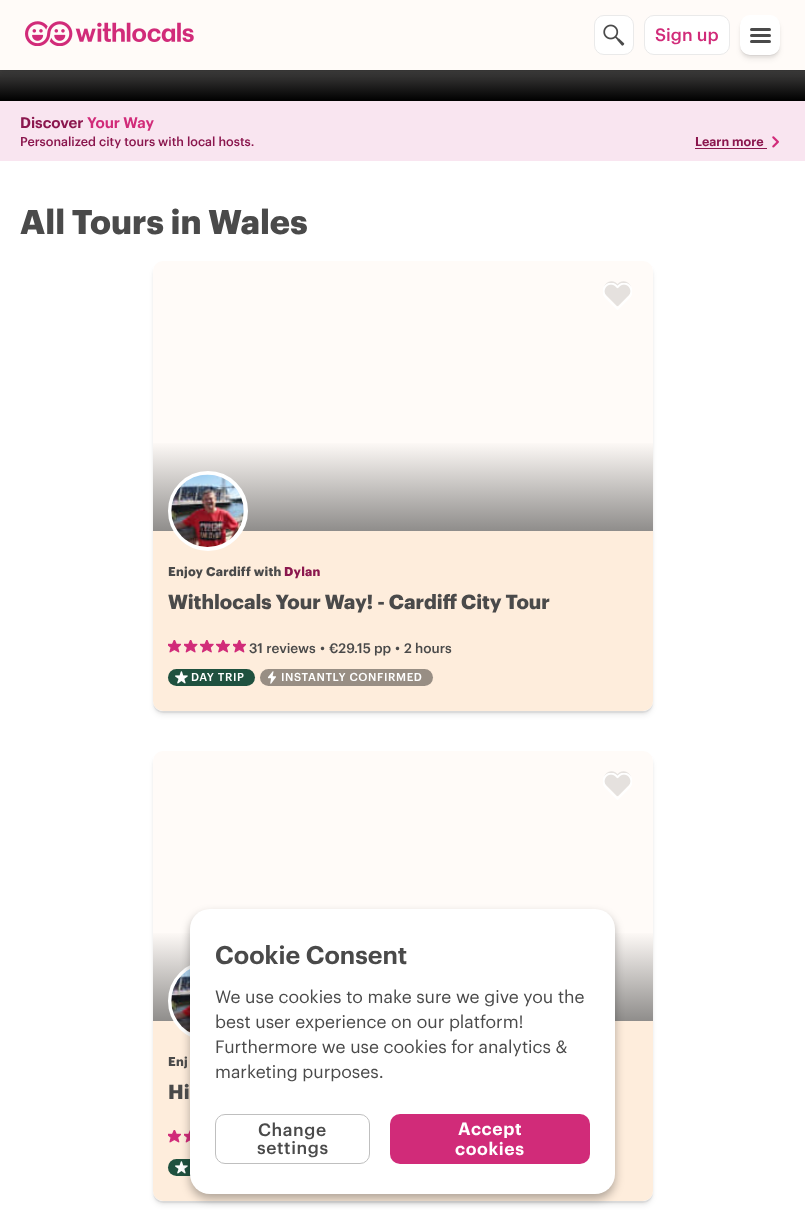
(async () => {
  const canvas = document.querySelector("canvas");
  canvas.width = 805;
  canvas.height = 1223;
  const ctx = canvas.getContext("2d");
  ctx.miterLimit = 4;
  ctx.fontKerning = "normal";
  async function loadImage(src) {
    const img = new Image();
    img.src = src;
    await img.decode();
    return img;
  }
  let gradient, path;

  ctx.fillStyle = "#ffffff";
  ctx.fillRect(0, 0, 805, 1223);
  gradient = ctx.createLinearGradient(403, -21, 403, 101);
  gradient.addColorStop(0, "#fffbf8");
  gradient.addColorStop(1, "#000000");
  ctx.fillStyle = gradient;
  ctx.fillRect(0, 70, 805, 31);
  ctx.fillStyle = "rgba(0, 0, 0, 0.05)";
  ctx.filter = "blur(2.5px)";
  ctx.beginPath();
  ctx.rect(0, 5, 805, 70);
  ctx.fill();
  ctx.filter = "none";
  ctx.filter = "blur(1px)";
  ctx.beginPath();
  ctx.rect(0, 3, 805, 70);
  ctx.fill();
  ctx.filter = "none";
  ctx.filter = "blur(0.5px)";
  ctx.beginPath();
  ctx.rect(0, 1, 805, 70);
  ctx.fill();
  ctx.filter = "none";
  ctx.fillStyle = "#fffbf8";
  ctx.fillRect(0, 0, 805, 70);
  ctx.drawImage(await loadImage("img/1.png"), 25, 21, 169, 25);
  ctx.fillStyle = "#ffffff";
  ctx.beginPath();
  ctx.roundRect(594.5, 15.5, 39, 39, 9.5);
  ctx.fill();
  ctx.strokeStyle = "#eaeaea";
  ctx.stroke();
  ctx.drawImage(await loadImage("img/2.png"), 603, 24, 22, 22);
  ctx.beginPath();
  ctx.roundRect(644.5, 15.5, 85, 39, 9.5);
  ctx.fill();
  ctx.stroke();
  ctx.fillStyle = "rgba(0, 0, 0, 0.05)";
  ctx.filter = "blur(2.5px)";
  ctx.beginPath();
  ctx.roundRect(740, 20, 40, 40, 10);
  ctx.fill();
  ctx.filter = "none";
  ctx.filter = "blur(1px)";
  ctx.beginPath();
  ctx.roundRect(740, 18, 40, 40, 10);
  ctx.fill();
  ctx.filter = "none";
  ctx.filter = "blur(0.5px)";
  ctx.beginPath();
  ctx.roundRect(740, 16, 40, 40, 10);
  ctx.fill();
  ctx.filter = "none";
  ctx.fillStyle = "#ffffff";
  ctx.beginPath();
  ctx.roundRect(740, 15, 40, 40, 10);
  ctx.fill();
  ctx.fillStyle = "#4a4a4a";
  ctx.beginPath();
  ctx.roundRect(750, 28, 21, 3, 1.5);
  ctx.fill();
  ctx.beginPath();
  ctx.roundRect(750, 34, 21, 3, 1.5);
  ctx.fill();
  ctx.beginPath();
  ctx.roundRect(750, 40, 21, 3, 1.5);
  ctx.fill();
  ctx.fillStyle = "#f9e5f0";
  ctx.fillRect(0, 101, 805, 60);
  ctx.fillStyle = "#8b174e";
  ctx.fillRect(695, 148, 72, 1);
  ctx.drawImage(await loadImage("img/3.png"), 772, 136, 7, 12);
  ctx.fillStyle = "#fffbf8";
  ctx.beginPath();
  ctx.roundRect(153, 261, 500, 270, [10, 10, 0, 0]);
  ctx.fill();
  gradient = ctx.createLinearGradient(403, 441, 403, 531);
  gradient.addColorStop(0, "#fffbf8");
  gradient.addColorStop(1, "#8f8d8b");
  ctx.fillStyle = gradient;
  ctx.fillRect(153, 443, 500, 88);
  ctx.save();
  path = new Path2D("M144 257H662V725H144ZM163 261H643C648.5 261 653 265.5 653 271V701C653 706.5 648.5 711 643 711H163C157.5 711 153 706.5 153 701V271C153 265.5 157.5 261 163 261Z");
  ctx.clip(path, "evenodd");
  ctx.fillStyle = "rgba(0, 0, 0, 0.05)";
  ctx.filter = "blur(2.5px)";
  ctx.beginPath();
  ctx.roundRect(153, 266, 500, 450, 10);
  ctx.fill();
  ctx.filter = "none";
  ctx.restore();
  ctx.save();
  path = new Path2D("M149 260H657V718H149ZM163 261H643C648.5 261 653 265.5 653 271V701C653 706.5 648.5 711 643 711H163C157.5 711 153 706.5 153 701V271C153 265.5 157.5 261 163 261Z");
  ctx.clip(path, "evenodd");
  ctx.fillStyle = "rgba(0, 0, 0, 0.05)";
  ctx.filter = "blur(1px)";
  ctx.beginPath();
  ctx.roundRect(153, 264, 500, 450, 10);
  ctx.fill();
  ctx.filter = "none";
  ctx.restore();
  ctx.save();
  path = new Path2D("M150 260H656V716H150ZM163 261H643C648.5 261 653 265.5 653 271V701C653 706.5 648.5 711 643 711H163C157.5 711 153 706.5 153 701V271C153 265.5 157.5 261 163 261Z");
  ctx.clip(path, "evenodd");
  ctx.fillStyle = "rgba(0, 0, 0, 0.05)";
  ctx.filter = "blur(0.5px)";
  ctx.beginPath();
  ctx.roundRect(153, 263, 500, 450, 10);
  ctx.fill();
  ctx.filter = "none";
  ctx.restore();
  ctx.drawImage(await loadImage("img/4.png"), 604, 281, 27, 25);
  ctx.drawImage(await loadImage("img/5.png"), 603, 283, 29, 27);
  ctx.fillStyle = "#feeddc";
  ctx.beginPath();
  ctx.roundRect(153, 531, 500, 180, [0, 0, 10, 10]);
  ctx.fill();
  ctx.fillStyle = "#ffffff";
  ctx.beginPath();
  ctx.arc(208, 511, 38, 0, Math.PI * 2);
  ctx.fill();
  ctx.strokeStyle = "#ffffff";
  ctx.lineWidth = 4;
  ctx.stroke();
  ctx.drawImage(await loadImage("img/6.png"), 171, 474, 73, 73);
  ctx.drawImage(await loadImage("img/7.png"), 168, 640, 13, 13);
  ctx.drawImage(await loadImage("img/8.png"), 184, 640, 14, 13);
  ctx.drawImage(await loadImage("img/9.png"), 200, 640, 14, 13);
  ctx.drawImage(await loadImage("img/10.png"), 216, 640, 14, 13);
  ctx.drawImage(await loadImage("img/7.png"), 233, 640, 13, 13);
  ctx.fillStyle = "#1f513f";
  ctx.beginPath();
  ctx.roundRect(168, 669, 87, 17, 8.5);
  ctx.fill();
  ctx.drawImage(await loadImage("img/11.png"), 175, 671, 13, 13);
  ctx.fillStyle = "#988e84";
  ctx.beginPath();
  ctx.roundRect(260, 669, 173, 17, 8.5);
  ctx.fill();
  ctx.drawImage(await loadImage("img/12.png"), 268, 671, 8, 13);
  ctx.fillStyle = "#fffbf8";
  ctx.beginPath();
  ctx.roundRect(153, 751, 500, 270, [10, 10, 0, 0]);
  ctx.fill();
  gradient = ctx.createLinearGradient(403, 931, 403, 1021);
  gradient.addColorStop(0, "#fffbf8");
  gradient.addColorStop(1, "#8f8d8b");
  ctx.fillStyle = gradient;
  ctx.fillRect(153, 933, 500, 88);
  ctx.save();
  path = new Path2D("M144 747H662V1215H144ZM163 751H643C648.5 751 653 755.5 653 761V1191C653 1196.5 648.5 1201 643 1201H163C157.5 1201 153 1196.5 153 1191V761C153 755.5 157.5 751 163 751Z");
  ctx.clip(path, "evenodd");
  ctx.fillStyle = "rgba(0, 0, 0, 0.05)";
  ctx.filter = "blur(2.5px)";
  ctx.beginPath();
  ctx.roundRect(153, 756, 500, 450, 10);
  ctx.fill();
  ctx.filter = "none";
  ctx.restore();
  ctx.save();
  path = new Path2D("M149 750H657V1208H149ZM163 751H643C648.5 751 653 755.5 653 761V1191C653 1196.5 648.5 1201 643 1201H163C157.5 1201 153 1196.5 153 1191V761C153 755.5 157.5 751 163 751Z");
  ctx.clip(path, "evenodd");
  ctx.fillStyle = "rgba(0, 0, 0, 0.05)";
  ctx.filter = "blur(1px)";
  ctx.beginPath();
  ctx.roundRect(153, 754, 500, 450, 10);
  ctx.fill();
  ctx.filter = "none";
  ctx.restore();
  ctx.save();
  path = new Path2D("M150 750H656V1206H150ZM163 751H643C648.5 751 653 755.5 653 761V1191C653 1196.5 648.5 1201 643 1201H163C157.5 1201 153 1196.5 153 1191V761C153 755.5 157.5 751 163 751Z");
  ctx.clip(path, "evenodd");
  ctx.fillStyle = "rgba(0, 0, 0, 0.05)";
  ctx.filter = "blur(0.5px)";
  ctx.beginPath();
  ctx.roundRect(153, 753, 500, 450, 10);
  ctx.fill();
  ctx.filter = "none";
  ctx.restore();
  ctx.drawImage(await loadImage("img/4.png"), 604, 771, 27, 25);
  ctx.drawImage(await loadImage("img/5.png"), 603, 773, 29, 27);
  ctx.fillStyle = "#feeddc";
  ctx.beginPath();
  ctx.roundRect(153, 1021, 500, 180, [0, 0, 10, 10]);
  ctx.fill();
  ctx.beginPath();
  ctx.arc(208, 1001, 38, 0, Math.PI * 2);
  ctx.stroke();
  ctx.drawImage(await loadImage("img/13.png"), 171, 969, 19, 64);
  ctx.drawImage(await loadImage("img/7.png"), 168, 1130, 13, 13);
  ctx.drawImage(await loadImage("img/14.png"), 184, 1130, 6, 13);
  ctx.fillStyle = "#1f513f";
  ctx.beginPath();
  ctx.roundRect(168, 1159, 170, 17, 8.5);
  ctx.fill();
  ctx.drawImage(await loadImage("img/11.png"), 175, 1161, 13, 13);
  ctx.fillStyle = "rgba(0, 0, 0, 0.3)";
  ctx.filter = "blur(5px)";
  ctx.beginPath();
  ctx.roundRect(190, 914, 425, 285, 20);
  ctx.fill();
  ctx.filter = "none";
  ctx.fillStyle = "#ffffff";
  ctx.beginPath();
  ctx.roundRect(190, 909, 425, 285, 20);
  ctx.fill();
  ctx.beginPath();
  ctx.roundRect(215.5, 1114.5, 154, 49, 9.5);
  ctx.strokeStyle = "#bfbfbf";
  ctx.lineWidth = 1;
  ctx.stroke();
  ctx.fillStyle = "#d12b79";
  ctx.beginPath();
  ctx.roundRect(390, 1114, 200, 50, 10);
  ctx.fill();
  ctx.font = "500 17.5px Graphik";
  ctx.fillText("Sign up", 655, 41);
  ctx.font = "600 15px Graphik";
  ctx.fillStyle = "#8b174e";
  ctx.fillText("Discover", 20, 128);
  ctx.fillStyle = "#d12b79";
  ctx.fillText("Your Way", 87, 128);
  ctx.font = "500 12.5px Graphik";
  ctx.fillStyle = "#8b174e";
  ctx.fillText("Personalized city tours with local hosts.", 20, 146);
  ctx.font = "600 12.5px Graphik";
  ctx.fillText("Learn more", 695, 146);
  ctx.font = "bold 33.75px Graphik";
  ctx.fillStyle = "#4a4a4a";
  ctx.fillText("All Tours in Wales", 20, 234);
  ctx.letterSpacing = "0.25px";
  ctx.font = "bold 12.5px Graphik";
  ctx.fillText("Enjoy Cardiff with", 168, 576);
  ctx.fillStyle = "#8b174e";
  ctx.fillText("Dylan", 284, 576);
  ctx.letterSpacing = "0px";
  ctx.font = "bold 20px Graphik";
  ctx.fillStyle = "#4a4a4a";
  ctx.fillText("Withlocals Your Way! - Cardiff City Tour", 168, 609);
  ctx.font = "500 13.5px Graphik";
  ctx.fillText("31 reviews", 249, 653);
  ctx.font = "15px Graphik";
  ctx.fillText("•", 320, 653);
  ctx.font = "500 13.5px Graphik";
  ctx.fillText("€29.15 pp", 329, 653);
  ctx.font = "15px Graphik";
  ctx.fillText("•", 395, 653);
  ctx.font = "500 13.5px Graphik";
  ctx.fillText("2 hours", 404, 653);
  ctx.letterSpacing = "0.6px";
  ctx.font = "500 11.25px Graphik";
  ctx.fillStyle = "#ffffff";
  ctx.fillText("DAY TRIP", 191, 681);
  ctx.fillText("INSTANTLY CONFIRMED", 281, 681);
  ctx.letterSpacing = "0.25px";
  ctx.font = "bold 12.5px Graphik";
  ctx.fillStyle = "#4a4a4a";
  ctx.fillText("Enj", 168, 1066);
  ctx.letterSpacing = "0px";
  ctx.font = "bold 20px Graphik";
  ctx.fillText("Hi", 168, 1099);
  ctx.font = "600 25px Graphik";
  ctx.fillText("Cookie Consent", 215, 964);
  ctx.font = "17.5px Graphik";
  for (const [text, x, y] of [
    ["We use cookies to make sure we give you the", 215, 1003],
    ["best user experience on our platform!", 215, 1028],
    ["Furthermore we use cookies for analytics &", 215, 1053],
    ["marketing purposes.", 215, 1078],
  ]) {
    ctx.fillText(text, x, y);
  }
  ctx.letterSpacing = "0.6px";
  ctx.font = "500 17.5px Graphik";
  ctx.fillText("Change", 258, 1136);
  ctx.fillText("settings", 257, 1154);
  ctx.font = "600 17.5px Graphik";
  ctx.fillStyle = "#ffffff";
  ctx.fillText("Accept", 458, 1135);
  ctx.fillText("cookies", 455, 1155);
})();
